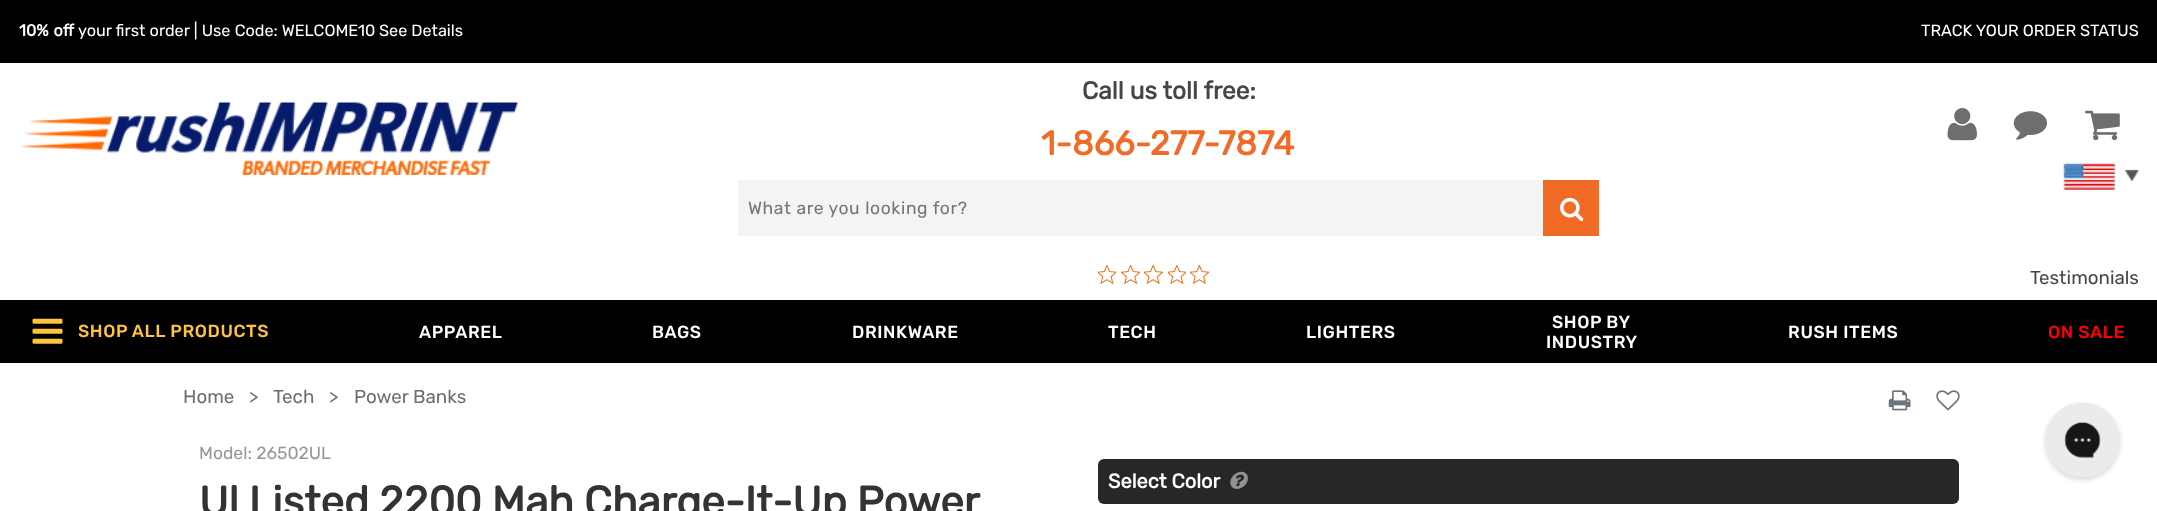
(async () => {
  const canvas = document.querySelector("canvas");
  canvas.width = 2157;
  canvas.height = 511;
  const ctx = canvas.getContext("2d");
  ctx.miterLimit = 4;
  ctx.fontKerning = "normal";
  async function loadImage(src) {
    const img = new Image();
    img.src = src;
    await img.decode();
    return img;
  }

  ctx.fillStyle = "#ffffff";
  ctx.fillRect(0, 0, 2157, 511);
  ctx.fillStyle = "#000000";
  ctx.fillRect(0, 0, 2157, 63);
  ctx.drawImage(await loadImage("img/1.png"), 20, 102, 498, 73);
  ctx.fillStyle = "#f4f4f4";
  ctx.fillRect(738, 180, 805, 56);
  ctx.fillStyle = "#f26b26";
  ctx.fillRect(1543, 180, 56, 56);
  ctx.drawImage(await loadImage("img/2.png"), 1560, 197, 24, 25);
  ctx.drawImage(await loadImage("img/3.png"), 1947, 108, 30, 33);
  ctx.drawImage(await loadImage("img/4.png"), 2013, 111, 35, 29);
  ctx.drawImage(await loadImage("img/5.png"), 2085, 110, 35, 31);
  ctx.drawImage(await loadImage("img/6.png"), 2124, 169, 15, 13);
  ctx.drawImage(await loadImage("img/7.png"), 2063, 163, 52, 27);
  ctx.drawImage(await loadImage("img/8.png"), 1098, 265, 18, 19);
  ctx.drawImage(await loadImage("img/9.png"), 1121, 265, 19, 19);
  ctx.drawImage(await loadImage("img/10.png"), 1144, 265, 19, 19);
  ctx.drawImage(await loadImage("img/8.png"), 1168, 265, 18, 19);
  ctx.drawImage(await loadImage("img/11.png"), 1190, 265, 19, 19);
  ctx.fillStyle = "#000000";
  ctx.fillRect(0, 300, 2157, 63);
  ctx.drawImage(await loadImage("img/12.png"), 32, 318, 31, 26);
  ctx.drawImage(await loadImage("img/13.png"), 1888, 390, 23, 21);
  ctx.drawImage(await loadImage("img/14.png"), 1936, 390, 24, 21);
  ctx.fillStyle = "#282626";
  ctx.beginPath();
  ctx.roundRect(1098, 459, 861, 45, 6);
  ctx.fill();
  ctx.drawImage(await loadImage("img/15.png"), 1230, 471, 18, 18);
  ctx.drawImage(await loadImage("img/16.png"), 2042, 402, 81, 81);
  ctx.wordSpacing = "1px";
  ctx.font = "bold 16.25px Rubik";
  ctx.fillStyle = "#ffffff";
  ctx.fillText("10% off", 19, 36);
  ctx.wordSpacing = "0.25px";
  ctx.font = "16.25px Rubik";
  ctx.fillText("your first order | Use Code: WELCOME10", 78, 36);
  ctx.wordSpacing = "0px";
  ctx.fillText("See Details", 379, 36);
  ctx.fillText("TRACK YOUR ORDER STATUS", 1921, 36);
  ctx.font = "bold 24.5px Rubik";
  ctx.fillStyle = "#464646";
  ctx.fillText("Call us toll free:", 1082, 99);
  ctx.font = "bold 34px Rubik";
  ctx.fillStyle = "#f26b26";
  ctx.fillText("1-866-277-7874", 1041, 155);
  ctx.letterSpacing = "0.6px";
  ctx.font = "17.5px Rubik";
  ctx.fillStyle = "#757575";
  ctx.fillText("What are you looking for?", 748, 214);
  ctx.letterSpacing = "0px";
  ctx.font = "18.75px Rubik";
  ctx.fillStyle = "#464646";
  ctx.fillText("Testimonials", 2030, 284);
  ctx.letterSpacing = "0.6px";
  ctx.font = "500 17.5px Rubik";
  ctx.fillStyle = "#fec43c";
  ctx.fillText("SHOP ALL PRODUCTS", 78, 337);
  ctx.fillStyle = "#ffffff";
  for (const [text, x, y] of [
    ["APPAREL", 419, 338],
    ["BAGS", 652, 338],
    ["DRINKWARE", 852, 338],
    ["TECH", 1108, 338],
    ["LIGHTERS", 1306, 338],
    ["SHOP BY", 1552, 328],
    ["INDUSTRY", 1546, 348],
    ["RUSH ITEMS", 1788, 338],
  ]) {
    ctx.fillText(text, x, y);
  }
  ctx.fillStyle = "#ff0000";
  ctx.fillText("ON SALE", 2048, 338);
  ctx.letterSpacing = "0px";
  ctx.font = "18.75px Rubik";
  ctx.fillStyle = "#6e6e6e";
  for (const [text, x, y] of [
    ["Home", 183, 403],
    [">", 249, 403],
    ["Tech", 273, 403],
    [">", 329, 403],
    ["Power Banks", 354, 403],
  ]) {
    ctx.fillText(text, x, y);
  }
  ctx.font = "17.5px Rubik";
  ctx.fillStyle = "#969696";
  ctx.fillText("Model: 26502UL", 199, 459);
  ctx.wordSpacing = "-0.25px";
  ctx.font = "bold 42px Rubik";
  ctx.fillStyle = "#333333";
  ctx.fillText("Ul Listed 2200 Mah Charge-It-Up Power", 199, 516);
  ctx.wordSpacing = "0px";
  ctx.font = "bold 20px Rubik";
  ctx.fillStyle = "#ffffff";
  ctx.fillText("Select Color", 1108, 488);
})();
